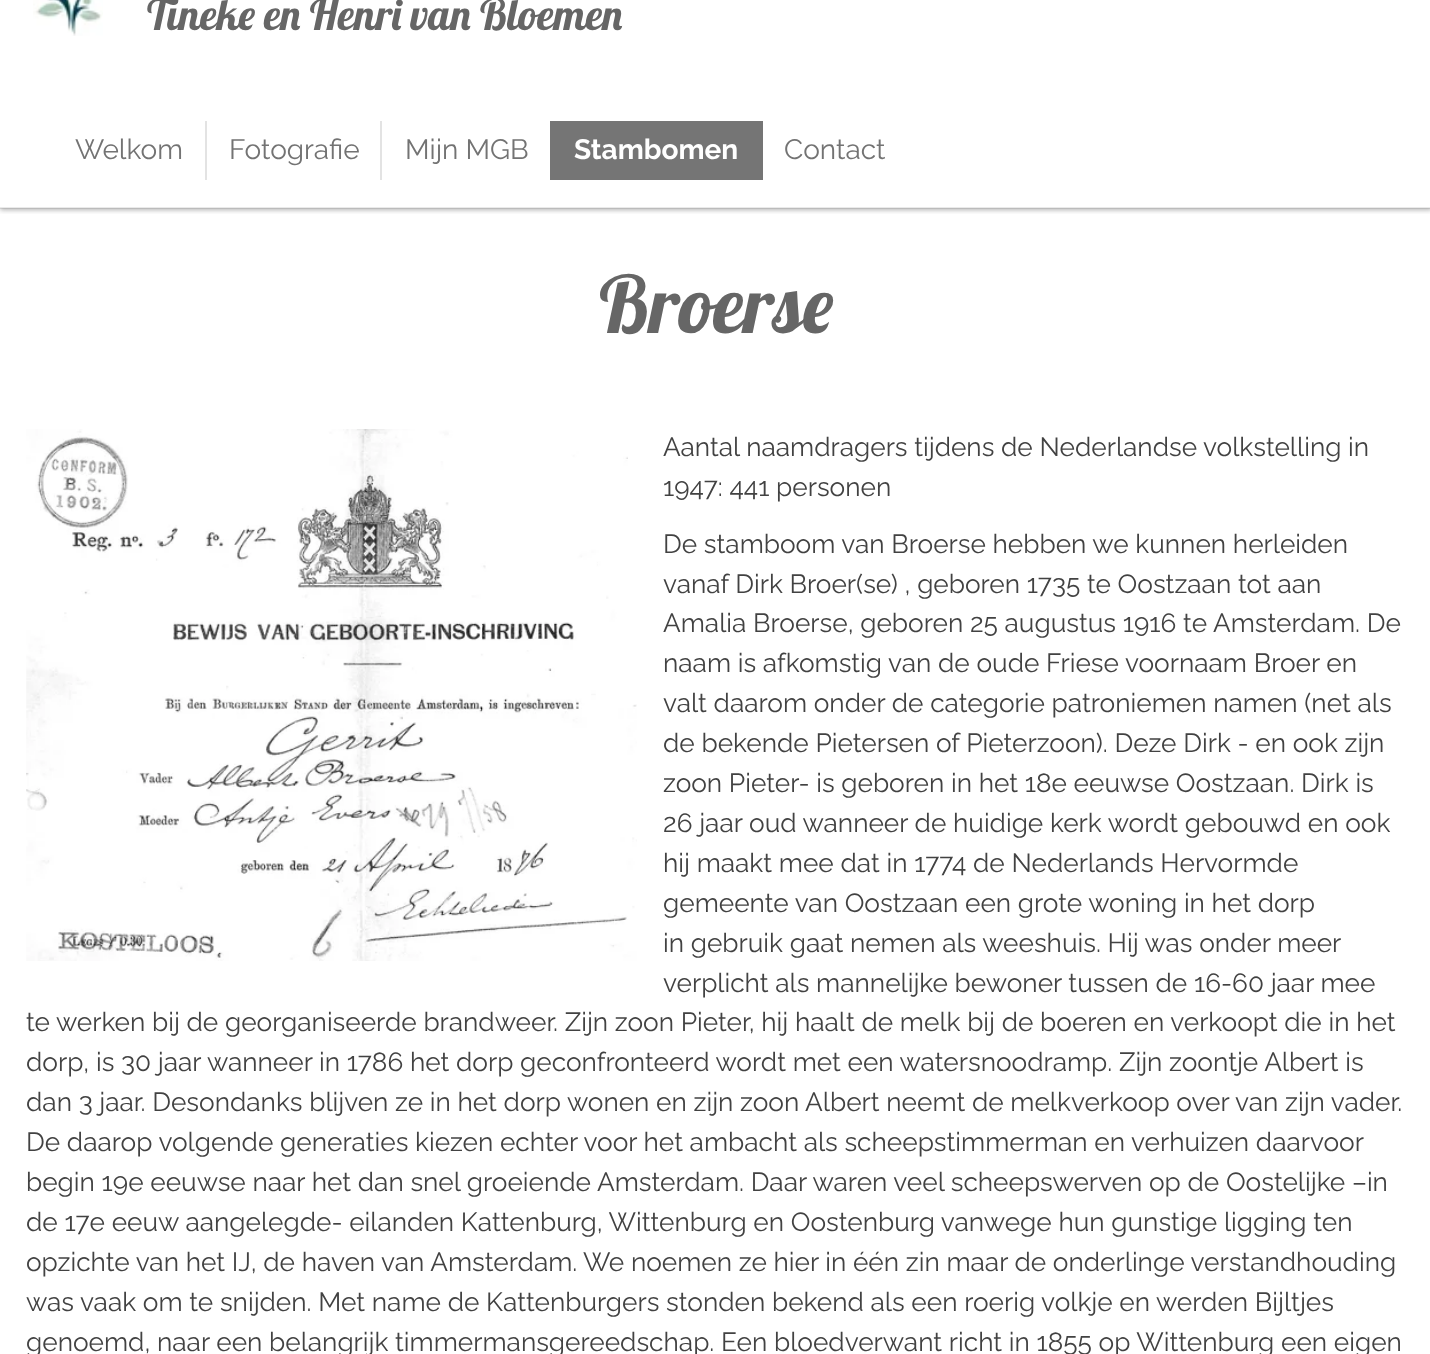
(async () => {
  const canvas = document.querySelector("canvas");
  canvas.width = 1430;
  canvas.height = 1354;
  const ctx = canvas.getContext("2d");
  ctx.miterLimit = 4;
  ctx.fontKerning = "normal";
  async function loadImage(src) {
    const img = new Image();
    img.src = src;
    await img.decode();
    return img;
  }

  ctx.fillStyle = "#ffffff";
  ctx.fillRect(0, 0, 1430, 1354);
  ctx.save();
  ctx.beginPath();
  ctx.rect(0, 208, 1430, 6);
  ctx.clip();
  ctx.fillStyle = "rgba(0, 0, 0, 0.3)";
  ctx.filter = "blur(2.5px)";
  ctx.beginPath();
  ctx.rect(0, -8, 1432, 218);
  ctx.fill();
  ctx.filter = "none";
  ctx.restore();
  ctx.fillStyle = "rgba(115, 115, 115, 0.15)";
  ctx.fillRect(0, 207, 1430, 2);
  ctx.drawImage(await loadImage("img/1.png"), 33, 0, 70, 36);
  for (const [x, y, w, h, color] of [
    [205, 121, 2, 59, "#e3e3e3"],
    [380, 121, 2, 59, "#e3e3e3"],
    [550, 121, 213, 59, "#757575"],
  ]) {
    ctx.fillStyle = color;
    ctx.fillRect(x, y, w, h);
  }
  ctx.drawImage(await loadImage("img/2.png"), 26, 429, 611, 532);
  ctx.font = "42.9px Lobster";
  ctx.fillStyle = "#666666";
  ctx.fillText("Tineke en Henri van Bloemen", 147, 30);
  ctx.font = "28px Raleway";
  ctx.fillStyle = "#737373";
  for (const [text, x, y] of [
    ["Welkom", 75, 159],
    ["Fotografie", 229, 159],
    ["Mijn MGB", 405, 159],
  ]) {
    ctx.fillText(text, x, y);
  }
  ctx.font = "bold 28px Raleway";
  ctx.fillStyle = "#ffffff";
  ctx.fillText("Stambomen", 574, 159);
  ctx.font = "28px Raleway";
  ctx.fillStyle = "#737373";
  ctx.fillText("Contact", 784, 159);
  ctx.font = "79px Lobster";
  ctx.fillStyle = "#666666";
  ctx.fillText("Broerse", 599, 333);
  ctx.font = "26.25px Raleway";
  ctx.fillStyle = "#424242";
  for (const [text, x, y] of [
    ["Aantal naamdragers tijdens de Nederlandse volkstelling in", 663, 456],
    ["1947: 441 personen", 663, 496],
    ["De stamboom van Broerse hebben we kunnen herleiden", 663, 553],
    ["vanaf Dirk Broer(se) , geboren 1735 te Oostzaan tot aan", 663, 593],
    ["Amalia Broerse, geboren 25 augustus 1916 te Amsterdam. De", 663, 632],
    ["naam is afkomstig van de oude Friese voornaam Broer en", 663, 672],
    ["valt daarom onder de categorie patroniemen namen (net als", 663, 712],
    ["de bekende Pietersen of Pieterzoon). Deze Dirk - en ook zijn", 663, 752],
    ["zoon Pieter- is geboren in het 18e eeuwse Oostzaan. Dirk is", 663, 792],
    ["26 jaar oud wanneer de huidige kerk wordt gebouwd en ook", 663, 832],
    ["hij maakt mee dat in 1774 de Nederlands Hervormde", 663, 872],
    ["gemeente van Oostzaan een grote woning in het dorp", 663, 912],
    ["in gebruik gaat nemen als weeshuis. Hij was onder meer", 663, 952],
    ["verplicht als mannelijke bewoner tussen de 16-60 jaar mee", 663, 992],
    ["te werken bij de georganiseerde brandweer. Zijn zoon Pieter, hij haalt de melk bij de boeren en verkoopt die in het", 26, 1031],
    ["dorp, is 30 jaar wanneer in 1786 het dorp geconfronteerd wordt met een watersnoodramp. Zijn zoontje Albert is", 26, 1071],
    ["dan 3 jaar. Desondanks blijven ze in het dorp wonen en zijn zoon Albert neemt de melkverkoop over van zijn vader.", 26, 1111],
    ["De daarop volgende generaties kiezen echter voor het ambacht als scheepstimmerman en verhuizen daarvoor", 26, 1151],
    ["begin 19e eeuwse naar het dan snel groeiende Amsterdam. Daar waren veel scheepswerven op de Oostelijke –in", 26, 1191],
    ["de 17e eeuw aangelegde- eilanden Kattenburg, Wittenburg en Oostenburg vanwege hun gunstige ligging ten", 26, 1231],
    ["opzichte van het IJ, de haven van Amsterdam. We noemen ze hier in één zin maar de onderlinge verstandhouding", 26, 1271],
    ["was vaak om te snijden. Met name de Kattenburgers stonden bekend als een roerig volkje en werden Bijltjes", 26, 1311],
    ["genoemd, naar een belangrijk timmermansgereedschap. Een bloedverwant richt in 1855 op Wittenburg een eigen", 26, 1351],
  ]) {
    ctx.fillText(text, x, y);
  }
})();
